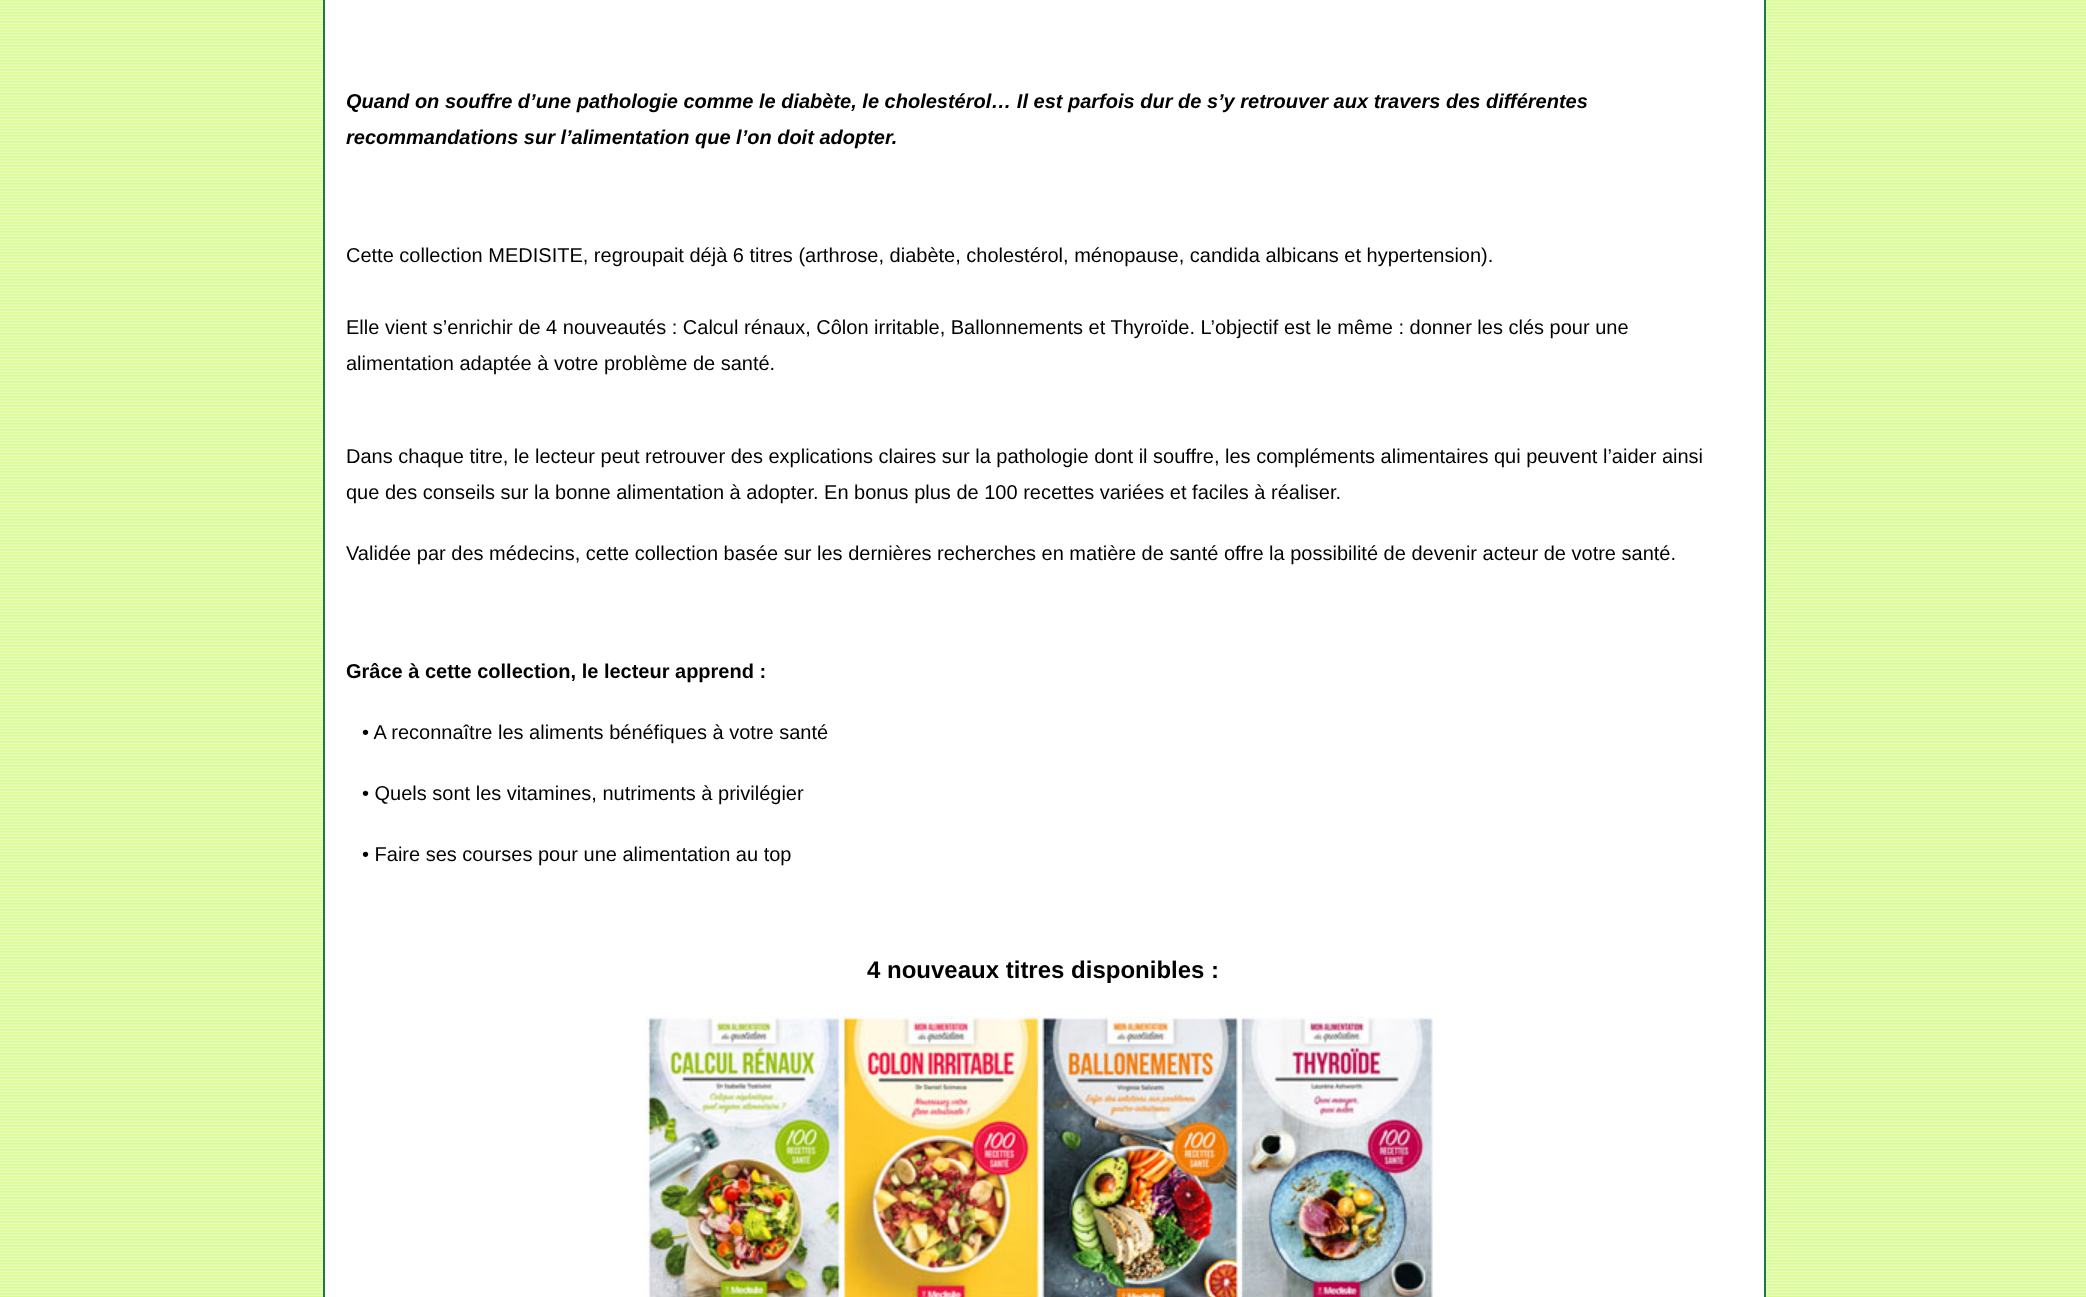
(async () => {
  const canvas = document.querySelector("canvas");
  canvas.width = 2086;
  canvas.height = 1297;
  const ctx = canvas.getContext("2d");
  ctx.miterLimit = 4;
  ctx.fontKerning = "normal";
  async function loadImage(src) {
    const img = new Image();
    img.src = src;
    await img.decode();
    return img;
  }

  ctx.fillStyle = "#ffffff";
  ctx.fillRect(0, 0, 2086, 1297);
  ctx.drawImage(await loadImage("img/1.png"), 0, 0, 2086, 1297);
  for (const [x, y, w, h, color] of [
    [325, 0, 1439, 1297, "#ffffff"],
    [1764, 0, 2, 1297, "#1d774a"],
    [323, 0, 2, 1297, "#1d774a"],
  ]) {
    ctx.fillStyle = color;
    ctx.fillRect(x, y, w, h);
  }
  ctx.drawImage(await loadImage("img/2.png"), 644, 1015, 791, 282);
  ctx.font = "italic bold 20px Liberation Sans";
  ctx.fillStyle = "#000000";
  ctx.fillText("Quand on souffre d’une pathologie comme le diabète, le cholestérol… Il est parfois dur de s’y retrouver aux travers des différentes", 346, 108);
  ctx.fillText("recommandations sur l’alimentation que l’on doit adopter.", 346, 144);
  ctx.font = "20px Liberation Sans";
  for (const [text, x, y] of [
    ["Cette collection MEDISITE, regroupait déjà 6 titres (arthrose, diabète, cholestérol, ménopause, candida albicans et hypertension).", 346, 262],
    ["Elle vient s’enrichir de 4 nouveautés : Calcul rénaux, Côlon irritable, Ballonnements et Thyroïde. L’objectif est le même : donner les clés pour une", 346, 334],
    ["alimentation adaptée à votre problème de santé.", 346, 370],
    ["Dans chaque titre, le lecteur peut retrouver des explications claires sur la pathologie dont il souffre, les compléments alimentaires qui peuvent l’aider ainsi", 346, 463],
    ["que des conseils sur la bonne alimentation à adopter. En bonus plus de 100 recettes variées et faciles à réaliser.", 346, 499],
    ["Validée par des médecins, cette collection basée sur les dernières recherches en matière de santé offre la possibilité de devenir acteur de votre santé.", 346, 560],
  ]) {
    ctx.fillText(text, x, y);
  }
  ctx.font = "bold 20px Liberation Sans";
  ctx.fillText("Grâce à cette collection, le lecteur apprend :", 346, 678);
  ctx.font = "20px Liberation Sans";
  for (const [text, x, y] of [
    ["• A reconnaître les aliments bénéfiques à votre santé", 362, 739],
    ["• Quels sont les vitamines, nutriments à privilégier", 362, 800],
    ["• Faire ses courses pour une alimentation au top", 362, 861],
  ]) {
    ctx.fillText(text, x, y);
  }
  ctx.font = "bold 24px Liberation Sans";
  ctx.fillText("4 nouveaux titres disponibles :", 867, 978);
})();
